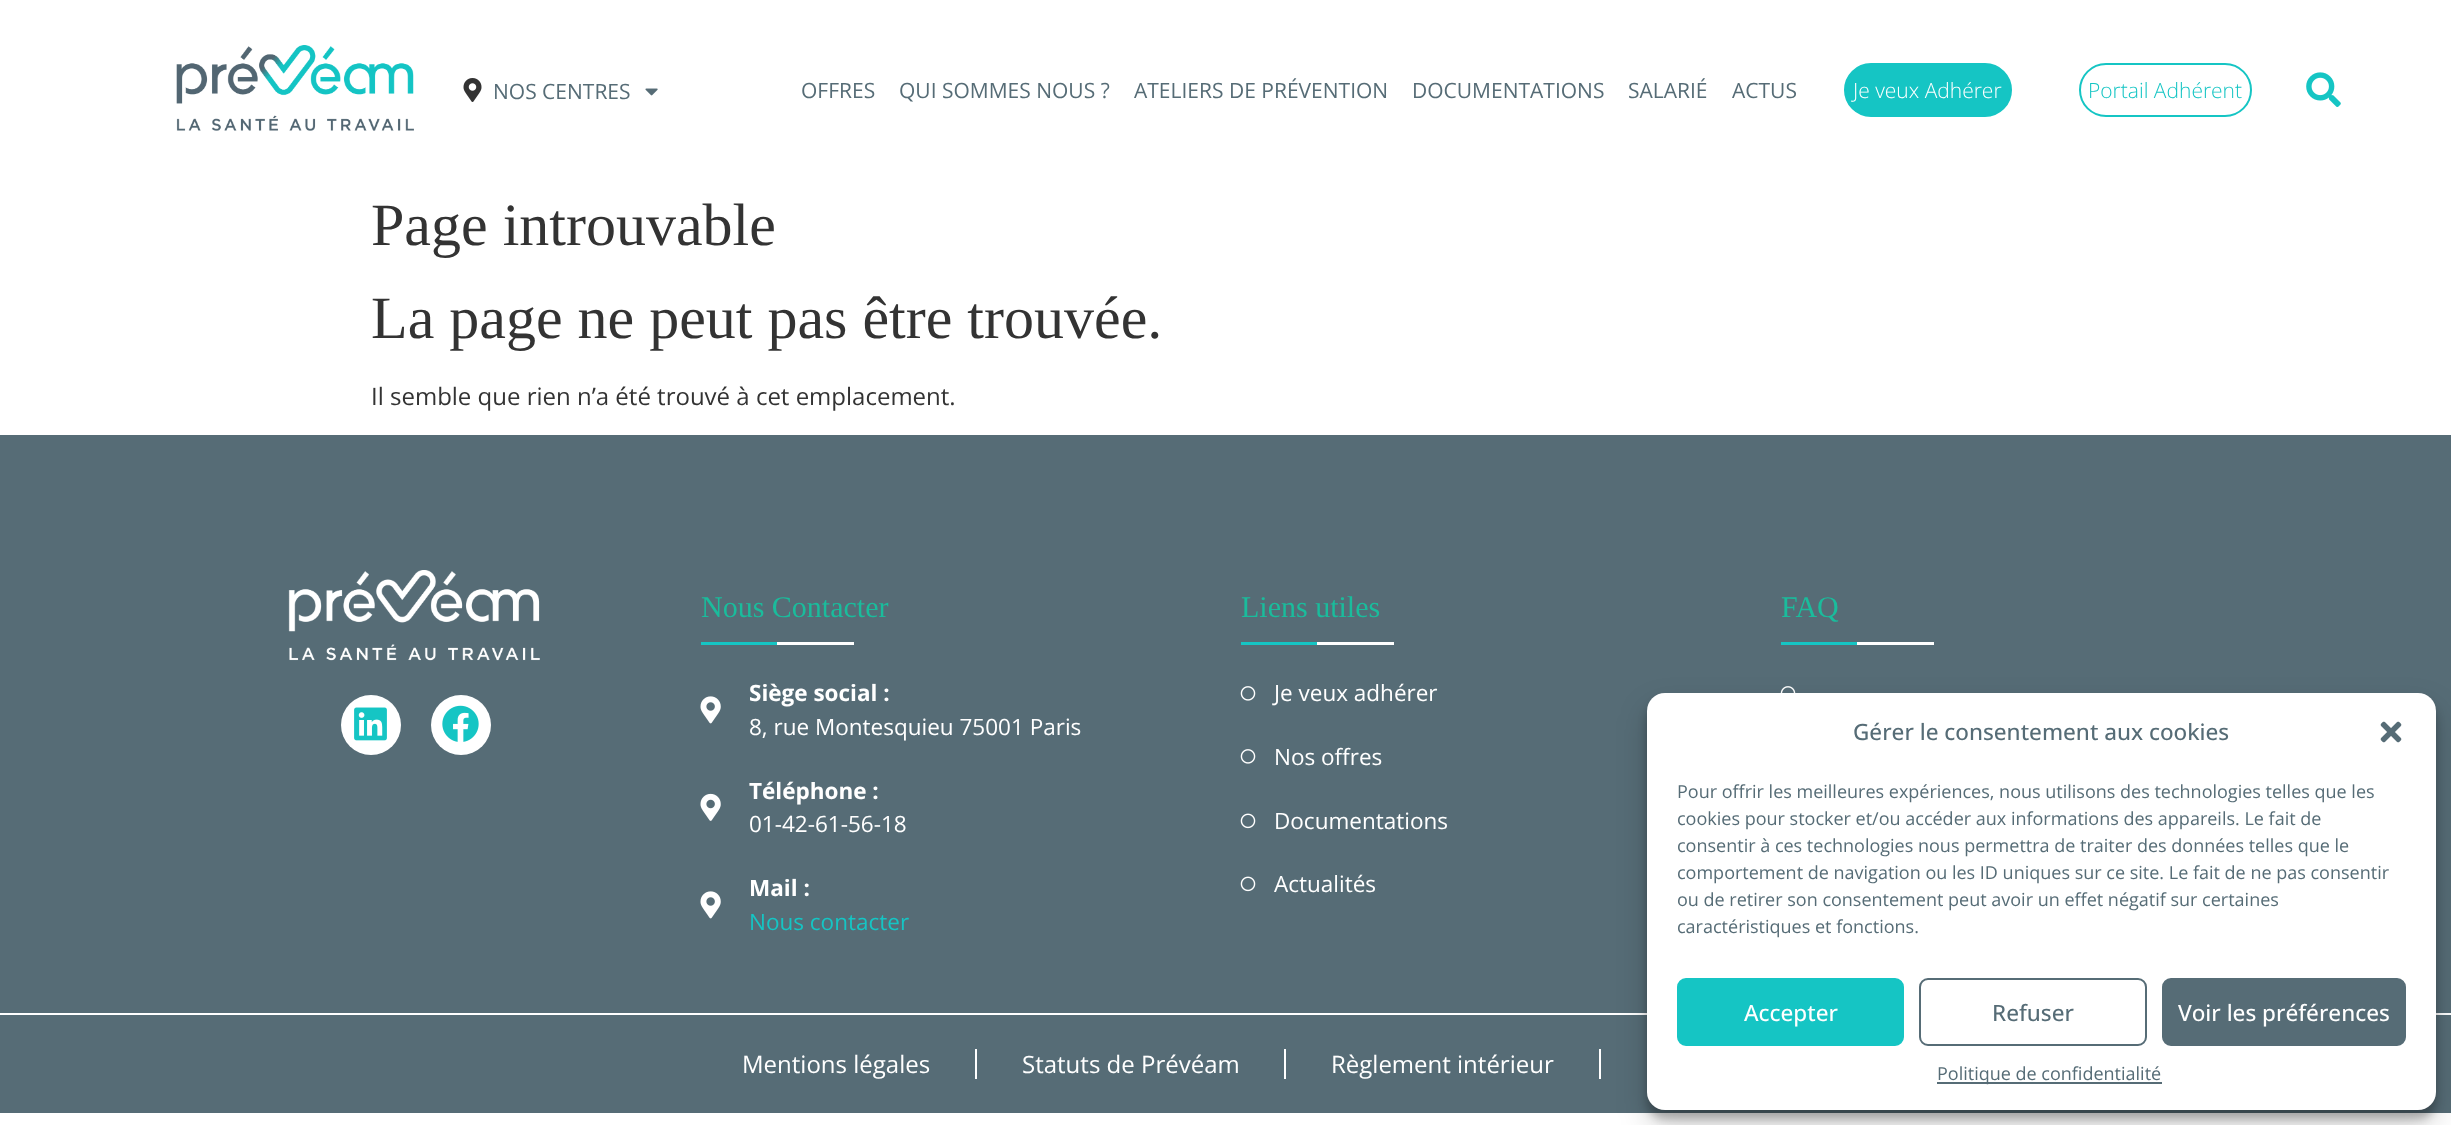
(async () => {
  const canvas = document.querySelector("canvas");
  canvas.width = 2451;
  canvas.height = 1125;
  const ctx = canvas.getContext("2d");
  ctx.miterLimit = 4;
  ctx.fontKerning = "normal";
  async function loadImage(src) {
    const img = new Image();
    img.src = src;
    await img.decode();
    return img;
  }

  ctx.fillStyle = "#ffffff";
  ctx.fillRect(0, 0, 2451, 1125);
  ctx.drawImage(await loadImage("img/1.png"), 176, 45, 238, 86);
  ctx.drawImage(await loadImage("img/2.png"), 463, 78, 19, 24);
  ctx.drawImage(await loadImage("img/3.png"), 645, 88, 13, 8);
  ctx.fillStyle = "#15c5c4";
  ctx.beginPath();
  ctx.roundRect(1845, 64, 166, 52, 26);
  ctx.fill();
  ctx.strokeStyle = "#15c5c4";
  ctx.lineWidth = 2;
  ctx.stroke();
  ctx.beginPath();
  ctx.roundRect(2080, 64, 171, 52, 26);
  ctx.stroke();
  ctx.drawImage(await loadImage("img/4.png"), 2306, 72, 35, 35);
  ctx.fillStyle = "#566c76";
  ctx.fillRect(0, 435, 2451, 578);
  ctx.drawImage(await loadImage("img/5.png"), 288, 570, 252, 91);
  ctx.fillStyle = "#ffffff";
  ctx.beginPath();
  ctx.arc(371, 725, 30, 0, Math.PI * 2);
  ctx.fill();
  ctx.drawImage(await loadImage("img/6.png"), 354, 707, 33, 34);
  ctx.beginPath();
  ctx.arc(461, 725, 30, 0, Math.PI * 2);
  ctx.fill();
  ctx.drawImage(await loadImage("img/7.png"), 442, 705, 37, 37);
  ctx.fillStyle = "#15c5c4";
  ctx.fillRect(701, 642, 76, 3);
  ctx.fillStyle = "#ffffff";
  ctx.fillRect(777, 642, 77, 3);
  ctx.drawImage(await loadImage("img/8.png"), 700, 696, 21, 28);
  ctx.drawImage(await loadImage("img/9.png"), 700, 793, 21, 28);
  ctx.drawImage(await loadImage("img/8.png"), 700, 891, 21, 28);
  ctx.fillStyle = "#15c5c4";
  ctx.fillRect(1241, 642, 76, 3);
  ctx.fillStyle = "#ffffff";
  ctx.fillRect(1317, 642, 77, 3);
  ctx.drawImage(await loadImage("img/10.png"), 1240, 686, 16, 15);
  ctx.drawImage(await loadImage("img/10.png"), 1240, 749, 16, 15);
  ctx.drawImage(await loadImage("img/11.png"), 1240, 813, 16, 16);
  ctx.drawImage(await loadImage("img/11.png"), 1240, 876, 16, 16);
  ctx.fillStyle = "#15c5c4";
  ctx.fillRect(1781, 642, 76, 3);
  ctx.fillStyle = "#ffffff";
  ctx.fillRect(1857, 642, 77, 3);
  ctx.drawImage(await loadImage("img/12.png"), 1780, 686, 16, 7);
  for (const [x, y, w, h, color] of [
    [0, 1015, 2451, 98, "#566c76"],
    [975, 1049, 2, 30, "#ffffff"],
    [1284, 1049, 2, 30, "#ffffff"],
    [1599, 1049, 2, 30, "#ffffff"],
  ]) {
    ctx.fillStyle = color;
    ctx.fillRect(x, y, w, h);
  }
  ctx.fillStyle = "rgba(0, 0, 0, 0.23)";
  ctx.filter = "blur(4.5px)";
  ctx.beginPath();
  ctx.roundRect(1647, 702, 789, 417, 18);
  ctx.fill();
  ctx.filter = "none";
  ctx.fillStyle = "rgba(0, 0, 0, 0.19)";
  ctx.filter = "blur(15px)";
  ctx.beginPath();
  ctx.roundRect(1647, 708, 789, 417, 18);
  ctx.fill();
  ctx.filter = "none";
  ctx.fillStyle = "#ffffff";
  ctx.beginPath();
  ctx.roundRect(1647, 693, 789, 417, 18);
  ctx.fill();
  ctx.drawImage(await loadImage("img/13.png"), 2380, 721, 22, 22);
  ctx.fillStyle = "#15c5c4";
  ctx.beginPath();
  ctx.roundRect(1678, 979, 225, 66, 8);
  ctx.fill();
  ctx.stroke();
  ctx.beginPath();
  ctx.roundRect(1920, 979, 226, 66, 8);
  ctx.strokeStyle = "#566c76";
  ctx.stroke();
  ctx.fillStyle = "#566c76";
  ctx.beginPath();
  ctx.roundRect(2163, 979, 242, 66, 8);
  ctx.fill();
  ctx.stroke();
  ctx.fillRect(1937, 1082, 225, 2);
  ctx.font = "21px Open Sans";
  for (const [text, x, y] of [
    ["NOS CENTRES", 493, 99],
    ["OFFRES", 801, 98],
    ["QUI SOMMES NOUS ?", 899, 98],
    ["ATELIERS DE PRÉVENTION", 1134, 98],
    ["DOCUMENTATIONS", 1412, 98],
    ["SALARIÉ", 1628, 98],
    ["ACTUS", 1732, 98],
  ]) {
    ctx.fillText(text, x, y);
  }
  ctx.font = "300 21px Open Sans";
  ctx.fillStyle = "#ffffff";
  ctx.fillText("Je veux Adhérer", 1853, 98);
  ctx.fillStyle = "#15c5c4";
  ctx.fillText("Portail Adhérent", 2088, 98);
  ctx.font = "60px Liberation Serif";
  ctx.fillStyle = "#333333";
  ctx.fillText("Page introuvable", 371, 245);
  ctx.fillText("La page ne peut pas être trouvée.", 371, 338);
  ctx.font = "24px Open Sans";
  ctx.fillText("Il semble que rien n’a été trouvé à cet emplacement.", 371, 405);
  ctx.font = "30px Liberation Serif";
  ctx.fillStyle = "#1abc9c";
  ctx.fillText("Nous Contacter", 701, 617);
  ctx.font = "bold 22.5px Open Sans";
  ctx.fillStyle = "#ffffff";
  ctx.fillText("Siège social :", 749, 701);
  ctx.font = "22.5px Open Sans";
  ctx.fillText("8, rue Montesquieu 75001 Paris", 749, 735);
  ctx.font = "bold 22.5px Open Sans";
  ctx.fillText("Téléphone :", 749, 799);
  ctx.font = "22.5px Open Sans";
  ctx.fillText("01-42-61-56-18", 749, 832);
  ctx.font = "bold 22.5px Open Sans";
  ctx.fillText("Mail :", 749, 896);
  ctx.font = "22.5px Open Sans";
  ctx.fillStyle = "#15c5c4";
  ctx.fillText("Nous contacter", 749, 930);
  ctx.font = "30px Liberation Serif";
  ctx.fillStyle = "#1abc9c";
  ctx.fillText("Liens utiles", 1241, 617);
  ctx.font = "22.5px Open Sans";
  ctx.fillStyle = "#ffffff";
  for (const [text, x, y] of [
    ["Je veux adhérer", 1274, 701],
    ["Nos offres", 1274, 765],
    ["Documentations", 1274, 829],
    ["Actualités", 1274, 892],
  ]) {
    ctx.fillText(text, x, y);
  }
  ctx.font = "30px Liberation Serif";
  ctx.fillStyle = "#1abc9c";
  ctx.fillText("FAQ", 1781, 617);
  ctx.font = "24px Open Sans";
  ctx.fillStyle = "#ffffff";
  for (const [text, x, y] of [
    ["Mentions légales", 742, 1073],
    ["Statuts de Prévéam", 1022, 1073],
    ["Règlement intérieur", 1331, 1073],
  ]) {
    ctx.fillText(text, x, y);
  }
  ctx.font = "500 22.5px Open Sans";
  ctx.fillStyle = "#566c76";
  ctx.fillText("Gérer le consentement aux cookies", 1853, 740);
  ctx.font = "18px Open Sans";
  for (const [text, x, y] of [
    ["Pour offrir les meilleures expériences, nous utilisons des technologies telles que les", 1677, 798],
    ["cookies pour stocker et/ou accéder aux informations des appareils. Le fait de", 1677, 825],
    ["consentir à ces technologies nous permettra de traiter des données telles que le", 1677, 852],
    ["comportement de navigation ou les ID uniques sur ce site. Le fait de ne pas consentir", 1677, 879],
    ["ou de retirer son consentement peut avoir un effet négatif sur certaines", 1677, 906],
    ["caractéristiques et fonctions.", 1677, 933],
  ]) {
    ctx.fillText(text, x, y);
  }
  ctx.font = "500 22.5px Open Sans";
  ctx.fillStyle = "#ffffff";
  ctx.fillText("Accepter", 1744, 1021);
  ctx.fillStyle = "#566c76";
  ctx.fillText("Refuser", 1992, 1021);
  ctx.fillStyle = "#ffffff";
  ctx.fillText("Voir les préférences", 2178, 1021);
  ctx.font = "18px Open Sans";
  ctx.fillStyle = "#566c76";
  ctx.fillText("Politique de confidentialité", 1937, 1080);
})();
